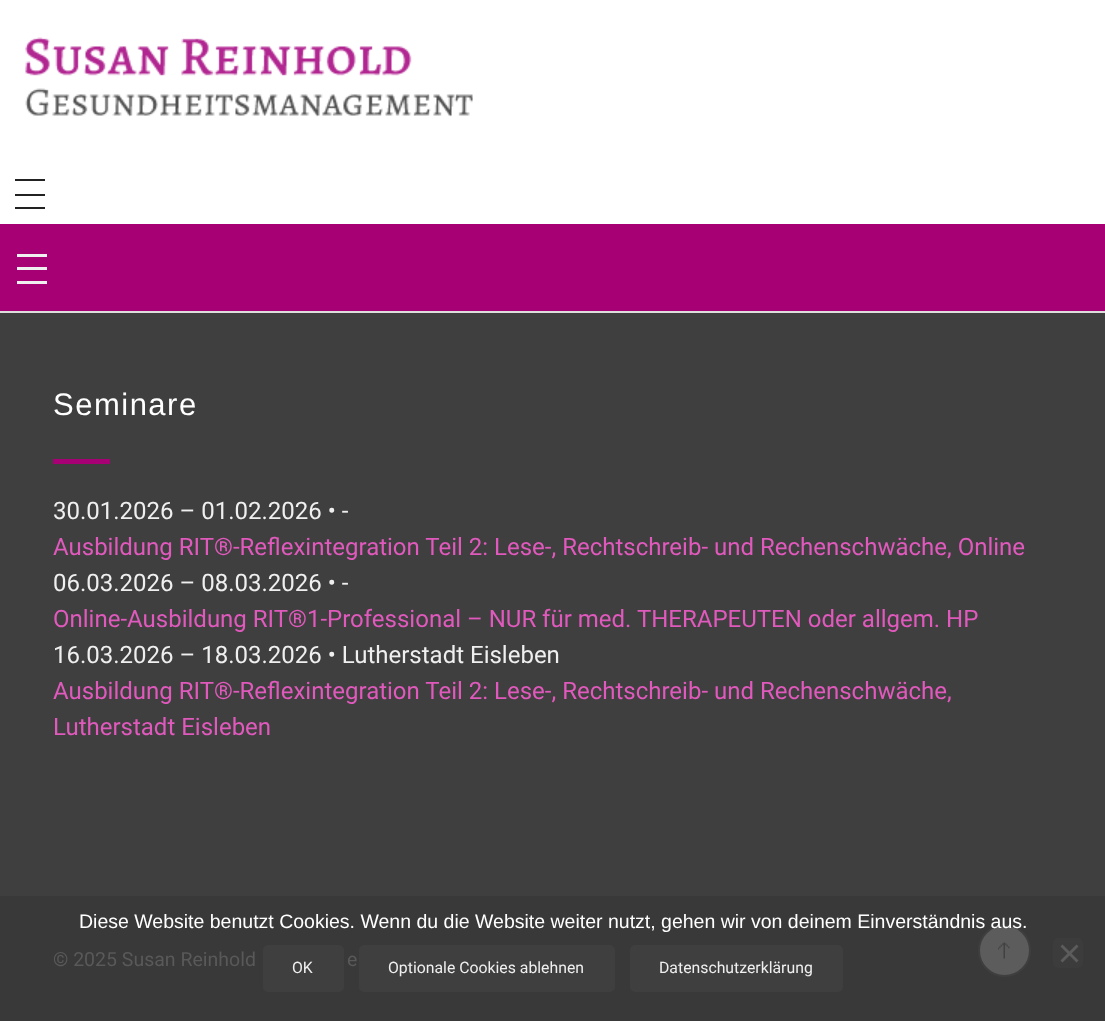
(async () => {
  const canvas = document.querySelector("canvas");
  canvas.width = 1105;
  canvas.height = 1021;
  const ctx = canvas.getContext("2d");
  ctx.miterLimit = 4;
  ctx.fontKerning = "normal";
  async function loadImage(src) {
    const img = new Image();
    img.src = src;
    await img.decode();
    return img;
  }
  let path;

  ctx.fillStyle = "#3f3f3f";
  ctx.fillRect(0, 0, 1105, 1021);
  ctx.fillStyle = "#dedede";
  ctx.fillRect(0, 311, 1105, 2);
  ctx.fillStyle = "#ffffff";
  ctx.fillRect(0, 0, 1105, 224);
  ctx.drawImage(await loadImage("img/1.png"), 25, 37, 448, 80);
  for (const [x, y, w, h, color] of [
    [15, 179, 30, 2, "#222222"],
    [15, 194, 30, 2, "#222222"],
    [15, 207, 30, 2, "#222222"],
    [0, 224, 1105, 87, "#a70075"],
    [17, 254, 30, 3, "#efefef"],
    [17, 267, 30, 3, "#efefef"],
    [17, 281, 30, 3, "#efefef"],
    [53, 459, 57, 5, "#a70075"],
    [0, 896, 1105, 125, "#393939"],
  ]) {
    ctx.fillStyle = color;
    ctx.fillRect(x, y, w, h);
  }
  ctx.fillStyle = "#3f3f3f";
  ctx.beginPath();
  ctx.roundRect(263, 945, 81, 47, 5);
  ctx.fill();
  ctx.beginPath();
  ctx.roundRect(359, 945, 256, 47, 5);
  ctx.fill();
  ctx.beginPath();
  ctx.roundRect(630, 945, 213, 47, 5);
  ctx.fill();
  ctx.fillStyle = "#3c3c3c";
  ctx.beginPath();
  ctx.roundRect(1053, 938, 30, 30, 5);
  ctx.fill();
  ctx.fillStyle = "#5c5c5c";
  path = new Path2D("M1076.5 944.5L1078.5 946.5L1062.5 962.5L1060.5 960.5Z");
  ctx.fill(path);
  path = new Path2D("M1060.5 946.5L1062.5 944.5L1078.5 960.5L1076.5 962.5Z");
  ctx.fill(path);
  ctx.beginPath();
  ctx.arc(1004.5, 950.5, 25.5, 0, Math.PI * 2);
  ctx.fill();
  ctx.strokeStyle = "#3f3f3f";
  ctx.lineWidth = 2;
  ctx.stroke();
  ctx.drawImage(await loadImage("img/2.png"), 998, 942, 12, 17);
  ctx.letterSpacing = "1.5px";
  ctx.font = "31px Liberation Sans";
  ctx.fillStyle = "#ffffff";
  ctx.fillText("Seminare", 53, 415);
  ctx.letterSpacing = "0px";
  ctx.font = "24px Roboto";
  ctx.fillStyle = "#efefef";
  ctx.fillText("30.01.2026 – 01.02.2026 • -", 53, 519);
  ctx.fillStyle = "#e059bc";
  ctx.fillText("Ausbildung RIT®-Reflexintegration Teil 2: Lese-, Rechtschreib- und Rechenschwäche, Online", 53, 555);
  ctx.fillStyle = "#efefef";
  ctx.fillText("06.03.2026 – 08.03.2026 • -", 53, 591);
  ctx.fillStyle = "#e059bc";
  ctx.fillText("Online-Ausbildung RIT®1-Professional – NUR für med. THERAPEUTEN oder allgem. HP", 53, 627);
  ctx.fillStyle = "#efefef";
  ctx.fillText("16.03.2026 – 18.03.2026 • Lutherstadt Eisleben", 53, 663);
  ctx.fillStyle = "#e059bc";
  ctx.fillText("Ausbildung RIT®-Reflexintegration Teil 2: Lese-, Rechtschreib- und Rechenschwäche,", 53, 699);
  ctx.fillText("Lutherstadt Eisleben", 53, 735);
  ctx.font = "19.5px Roboto";
  ctx.fillStyle = "#595959";
  ctx.fillText("© 2025 Susan Reinhold", 53, 966);
  ctx.fillText("e", 347, 966);
  ctx.font = "19.5px Liberation Sans";
  ctx.fillStyle = "#ffffff";
  ctx.fillText("Diese Website benutzt Cookies. Wenn du die Website weiter nutzt, gehen wir von deinem Einverständnis aus.", 79, 928);
  ctx.font = "15.8px Roboto";
  ctx.fillStyle = "#efefef";
  for (const [text, x, y] of [
    ["OK", 292, 973],
    ["Optionale Cookies ablehnen", 388, 973],
    ["Datenschutzerklärung", 659, 973],
  ]) {
    ctx.fillText(text, x, y);
  }
})();
